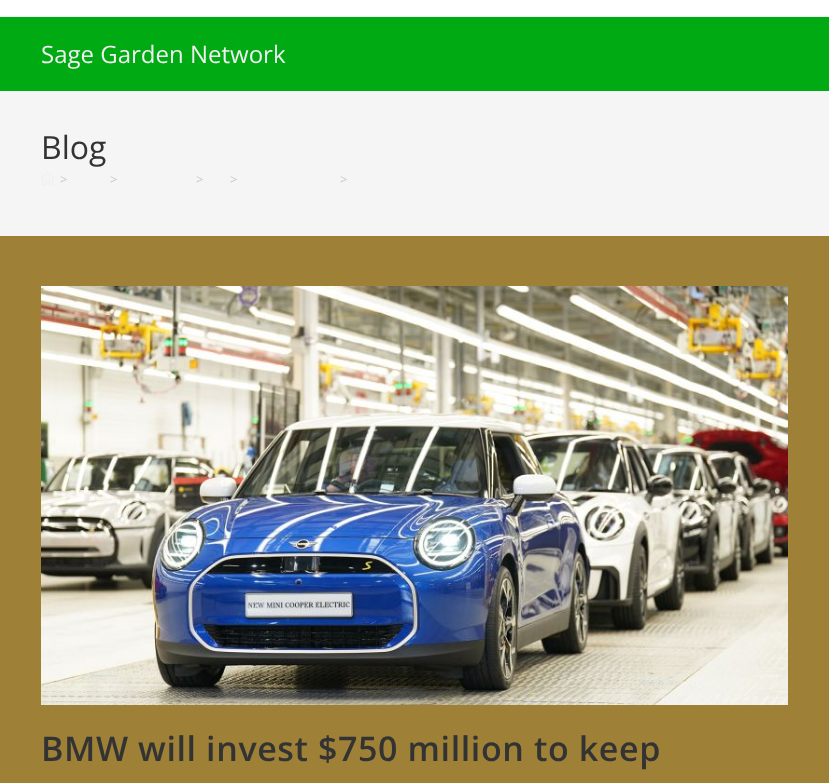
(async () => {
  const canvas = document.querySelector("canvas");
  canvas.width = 829;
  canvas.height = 783;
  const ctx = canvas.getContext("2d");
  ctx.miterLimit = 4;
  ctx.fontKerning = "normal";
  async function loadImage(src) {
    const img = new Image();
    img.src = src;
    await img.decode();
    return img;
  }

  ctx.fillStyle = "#9e8037";
  ctx.fillRect(0, 0, 829, 783);
  for (const [x, y, w, h, color] of [
    [0, 0, 829, 16, "#ffffff"],
    [0, 16, 829, 1, "#f1f1f1"],
    [0, 17, 829, 74, "#00aa13"],
    [0, 91, 829, 145, "#f5f5f5"],
  ]) {
    ctx.fillStyle = color;
    ctx.fillRect(x, y, w, h);
  }
  ctx.drawImage(await loadImage("img/1.png"), 41, 172, 13, 13);
  ctx.drawImage(await loadImage("img/2.png"), 41, 286, 747, 419);
  ctx.font = "24px Open Sans";
  ctx.fillStyle = "#efefef";
  ctx.fillText("Sage Garden Network", 41, 63);
  ctx.font = "32px Open Sans";
  ctx.fillStyle = "#333333";
  ctx.fillText("Blog", 41, 159);
  ctx.font = "13px Open Sans";
  ctx.fillStyle = "#c6c6c6";
  for (const [text, x, y] of [
    [">", 60, 184],
    [">", 110, 184],
    [">", 196, 184],
    [">", 230, 184],
    [">", 340, 184],
  ]) {
    ctx.fillText(text, x, y);
  }
  ctx.letterSpacing = "0.6px";
  ctx.font = "600 34px Open Sans";
  ctx.fillStyle = "#333333";
  ctx.fillText("BMW will invest $750 million to keep", 41, 761);
})();
